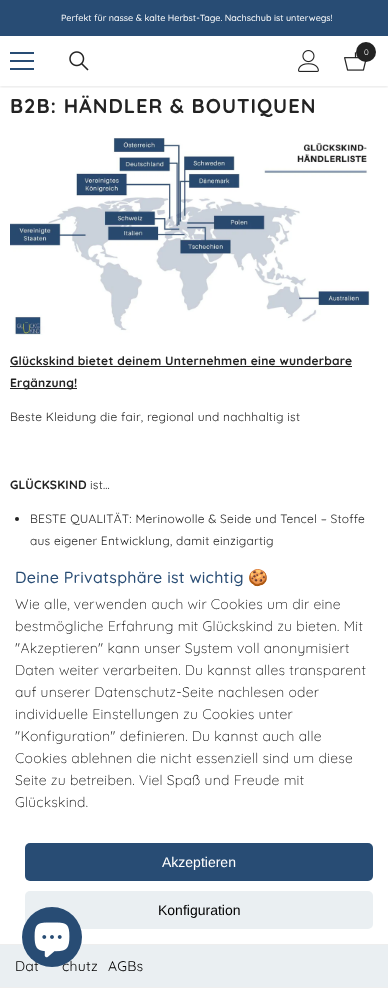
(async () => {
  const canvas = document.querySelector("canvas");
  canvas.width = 388;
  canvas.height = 988;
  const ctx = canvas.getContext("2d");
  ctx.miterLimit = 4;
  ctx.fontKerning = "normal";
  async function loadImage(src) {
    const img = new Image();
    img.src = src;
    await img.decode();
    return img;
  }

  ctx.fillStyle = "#ffffff";
  ctx.fillRect(0, 0, 388, 988);
  ctx.fillStyle = "#284c74";
  ctx.fillRect(0, 0, 388, 36);
  ctx.save();
  ctx.beginPath();
  ctx.rect(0, 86, 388, 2);
  ctx.clip();
  ctx.fillStyle = "rgba(0, 0, 0, 0.1)";
  ctx.filter = "blur(1.5px)";
  ctx.beginPath();
  ctx.rect(0, 37, 388, 50);
  ctx.fill();
  ctx.filter = "none";
  ctx.restore();
  for (const [x, y, w, h, color] of [
    [10, 60, 24, 2, "#284c74"],
    [10, 52, 24, 2, "#284c74"],
    [10, 68, 24, 2, "#284c74"],
  ]) {
    ctx.fillStyle = color;
    ctx.fillRect(x, y, w, h);
  }
  ctx.drawImage(await loadImage("img/1.png"), 69, 51, 20, 20);
  ctx.drawImage(await loadImage("img/2.png"), 298, 50, 21, 22);
  ctx.drawImage(await loadImage("img/3.png"), 344, 52, 23, 19);
  ctx.fillStyle = "#232323";
  ctx.beginPath();
  ctx.arc(366, 52, 10, 0, Math.PI * 2);
  ctx.fill();
  ctx.drawImage(await loadImage("img/4.png"), 10, 138, 360, 197);
  ctx.fillRect(10, 366, 342, 1);
  ctx.fillRect(10, 388, 67, 1);
  ctx.beginPath();
  ctx.arc(17, 519, 2, 0, Math.PI * 2);
  ctx.fill();
  ctx.fillStyle = "#284c74";
  ctx.beginPath();
  ctx.roundRect(25, 843, 348, 38, 5);
  ctx.fill();
  ctx.fillStyle = "#eaeff2";
  ctx.beginPath();
  ctx.roundRect(25, 891, 348, 38, 5);
  ctx.fill();
  for (const [x, y, w, h, color] of [
    [0, 945, 388, 42, "#eaeff2"],
    [0, 944, 388, 1, "#eeeeee"],
    [0, 987, 388, 1, "#eeeeee"],
  ]) {
    ctx.fillStyle = color;
    ctx.fillRect(x, y, w, h);
  }
  ctx.font = "500 9px Quicksand";
  ctx.fillStyle = "#ffffff";
  ctx.fillText("Perfekt für nasse & kalte Herbst-Tage. Nachschub ist unterwegs!", 61, 21);
  ctx.font = "8px Quicksand";
  ctx.fillText("0", 364, 55);
  ctx.letterSpacing = "1px";
  ctx.font = "bold 20px Quicksand";
  ctx.fillStyle = "#232323";
  ctx.fillText("B2B: HÄNDLER & BOUTIQUEN", 10, 113);
  ctx.letterSpacing = "0.25px";
  ctx.font = "bold 12px Quicksand";
  ctx.fillText("Glückskind bietet deinem Unternehmen eine wunderbare", 10, 365);
  ctx.fillText("Ergänzung!", 10, 387);
  ctx.font = "12px Quicksand";
  ctx.fillText("Beste Kleidung die fair, regional und nachhaltig ist", 10, 421);
  ctx.font = "bold 12px Quicksand";
  ctx.fillText("GLÜCKSKIND", 10, 489);
  ctx.font = "12px Quicksand";
  for (const [text, x, y] of [
    ["ist…", 90, 489],
    ["BESTE QUALITÄT: Merinowolle & Seide und Tencel – Stoffe", 30, 523],
    ["aus eigener Entwicklung, damit einzigartig", 30, 545],
  ]) {
    ctx.fillText(text, x, y);
  }
  ctx.font = "500 16px Quicksand";
  ctx.fillStyle = "#284c74";
  ctx.fillText("Deine Privatsphäre ist wichtig", 15, 583);
  ctx.font = "16px Noto Color Emoji";
  ctx.fillText("🍪", 248, 583);
  ctx.font = "300 14px Quicksand";
  ctx.fillStyle = "#000000";
  for (const [text, x, y] of [
    ["Wie alle, verwenden auch wir Cookies um dir eine", 15, 609],
    ["bestmögliche Erfahrung mit Glückskind zu bieten. Mit", 15, 631],
    ["\"Akzeptieren\" kann unser System voll anonymisiert", 15, 653],
    ["Daten weiter verarbeiten. Du kannst alles transparent", 15, 675],
    ["auf unserer Datenschutz-Seite nachlesen oder", 15, 697],
    ["individuelle Einstellungen zu Cookies unter", 15, 719],
    ["\"Konfiguration\" definieren. Du kannst auch alle", 15, 741],
    ["Cookies ablehnen die nicht essenziell sind um diese", 15, 763],
    ["Seite zu betreiben. Viel Spaß und Freude mit", 15, 785],
    ["Glückskind.", 15, 807],
  ]) {
    ctx.fillText(text, x, y);
  }
  ctx.letterSpacing = "0px";
  ctx.font = "14px Liberation Sans";
  ctx.fillStyle = "#ffffff";
  ctx.fillText("Akzeptieren", 162, 867);
  ctx.fillStyle = "#000000";
  ctx.fillText("Konfiguration", 158, 915);
  ctx.letterSpacing = "0.25px";
  ctx.font = "14px Quicksand";
  for (const [text, x, y] of [
    ["Dat", 15, 971],
    ["chutz", 62, 971],
    ["AGBs", 108, 971],
  ]) {
    ctx.fillText(text, x, y);
  }
  ctx.fillStyle = "#284c74";
  ctx.beginPath();
  ctx.arc(52, 937, 30, 0, Math.PI * 2);
  ctx.fill();
  ctx.drawImage(await loadImage("img/5.png"), 34, 922, 36, 36);
})();
